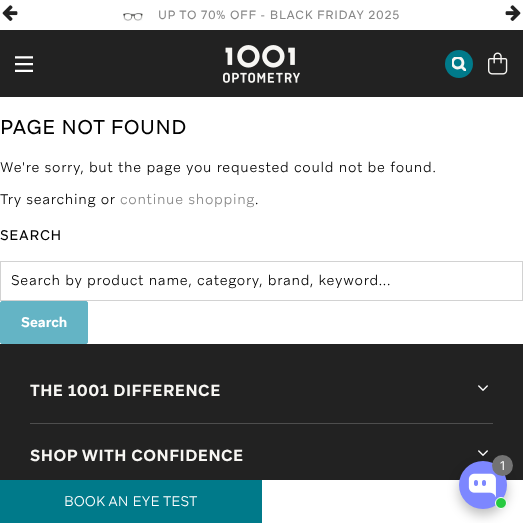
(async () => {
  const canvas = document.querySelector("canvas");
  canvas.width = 523;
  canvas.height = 523;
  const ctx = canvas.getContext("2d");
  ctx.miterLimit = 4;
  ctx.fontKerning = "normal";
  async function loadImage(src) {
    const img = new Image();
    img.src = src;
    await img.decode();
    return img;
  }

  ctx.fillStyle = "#ffffff";
  ctx.fillRect(0, 0, 523, 523);
  ctx.drawImage(await loadImage("img/1.png"), 2, 5, 16, 16);
  ctx.drawImage(await loadImage("img/2.png"), 123, 13, 20, 8);
  ctx.drawImage(await loadImage("img/3.png"), 505, 5, 16, 16);
  ctx.fillStyle = "#222222";
  ctx.fillRect(0, 30, 523, 67);
  ctx.drawImage(await loadImage("img/4.png"), 15, 56, 18, 16);
  ctx.drawImage(await loadImage("img/5.png"), 223, 45, 77, 38);
  ctx.fillStyle = "#007a8a";
  ctx.beginPath();
  ctx.arc(459, 64, 14, 0, Math.PI * 2);
  ctx.fill();
  ctx.drawImage(await loadImage("img/6.png"), 452, 57, 14, 14);
  ctx.drawImage(await loadImage("img/7.png"), 488, 52, 20, 23);
  ctx.fillRect(0, 480, 262, 43);
  ctx.strokeStyle = "#d2d2d2";
  ctx.strokeRect(0.5, 261.5, 522, 39);
  ctx.fillStyle = "#64b4c5";
  ctx.beginPath();
  ctx.roundRect(0.5, 301.5, 87, 42, 1.5);
  ctx.fill();
  ctx.strokeStyle = "#64b4c5";
  ctx.stroke();
  ctx.fillStyle = "#222222";
  ctx.fillRect(0, 344, 523, 136);
  ctx.fillStyle = "#4e4e4e";
  ctx.fillRect(30, 423, 463, 1);
  ctx.drawImage(await loadImage("img/8.png"), 478, 385, 10, 6);
  ctx.drawImage(await loadImage("img/8.png"), 478, 450, 10, 6);
  ctx.fillStyle = "rgba(0, 0, 0, 0.25)";
  ctx.filter = "blur(6px)";
  ctx.beginPath();
  ctx.roundRect(459, 467, 48, 48, 24);
  ctx.fill();
  ctx.filter = "none";
  ctx.fillStyle = "#7d87ff";
  ctx.beginPath();
  ctx.arc(483, 485, 24, 0, Math.PI * 2);
  ctx.fill();
  ctx.drawImage(await loadImage("img/9.png"), 468, 473, 28, 24);
  ctx.fillStyle = "#27ca40";
  ctx.beginPath();
  ctx.arc(501, 503, 5.5, 0, Math.PI * 2);
  ctx.fill();
  ctx.strokeStyle = "#ffffff";
  ctx.stroke();
  ctx.fillStyle = "#737373";
  ctx.beginPath();
  ctx.arc(502.5, 465.5, 10.5, 0, Math.PI * 2);
  ctx.fill();
  ctx.letterSpacing = "0.7px";
  ctx.font = "12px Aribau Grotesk";
  ctx.fillStyle = "#888888";
  ctx.fillText("UP TO 70% OFF - BLACK FRIDAY 2025", 158, 19);
  ctx.letterSpacing = "0px";
  ctx.font = "300 14px Aribau Grotesk";
  ctx.fillStyle = "#ffffff";
  ctx.fillText("BOOK AN EYE TEST", 64, 506);
  ctx.letterSpacing = "0.5px";
  ctx.font = "20px Aribau Grotesk";
  ctx.fillStyle = "#000000";
  ctx.fillText("PAGE NOT FOUND", 0, 134);
  ctx.letterSpacing = "0.7px";
  ctx.font = "300 14px Aribau Grotesk";
  ctx.fillText("We're sorry, but the page you requested could not be found.", 0, 172);
  ctx.fillText("Try searching or", 0, 204);
  ctx.fillStyle = "#888888";
  ctx.fillText("continue shopping", 120, 204);
  ctx.fillStyle = "#000000";
  ctx.fillText(".", 255, 204);
  ctx.font = "14px Aribau Grotesk";
  ctx.fillText("SEARCH", 0, 240);
  ctx.font = "300 14px Aribau Grotesk";
  ctx.fillText("Search by product name, category, brand, keyword...", 11, 285);
  ctx.letterSpacing = "0px";
  ctx.font = "bold 14px Aribau Grotesk";
  ctx.fillStyle = "#ffffff";
  ctx.fillText("Search", 21, 327);
  ctx.letterSpacing = "0.5px";
  ctx.font = "bold 16px Aribau Grotesk";
  ctx.fillStyle = "#f7f6f3";
  ctx.fillText("THE 1001 DIFFERENCE", 30, 396);
  ctx.fillText("SHOP WITH CONFIDENCE", 30, 461);
  ctx.letterSpacing = "0.7px";
  ctx.font = "12px Inter";
  ctx.fillStyle = "#ffffff";
  ctx.fillText("1", 500, 470);
})();
